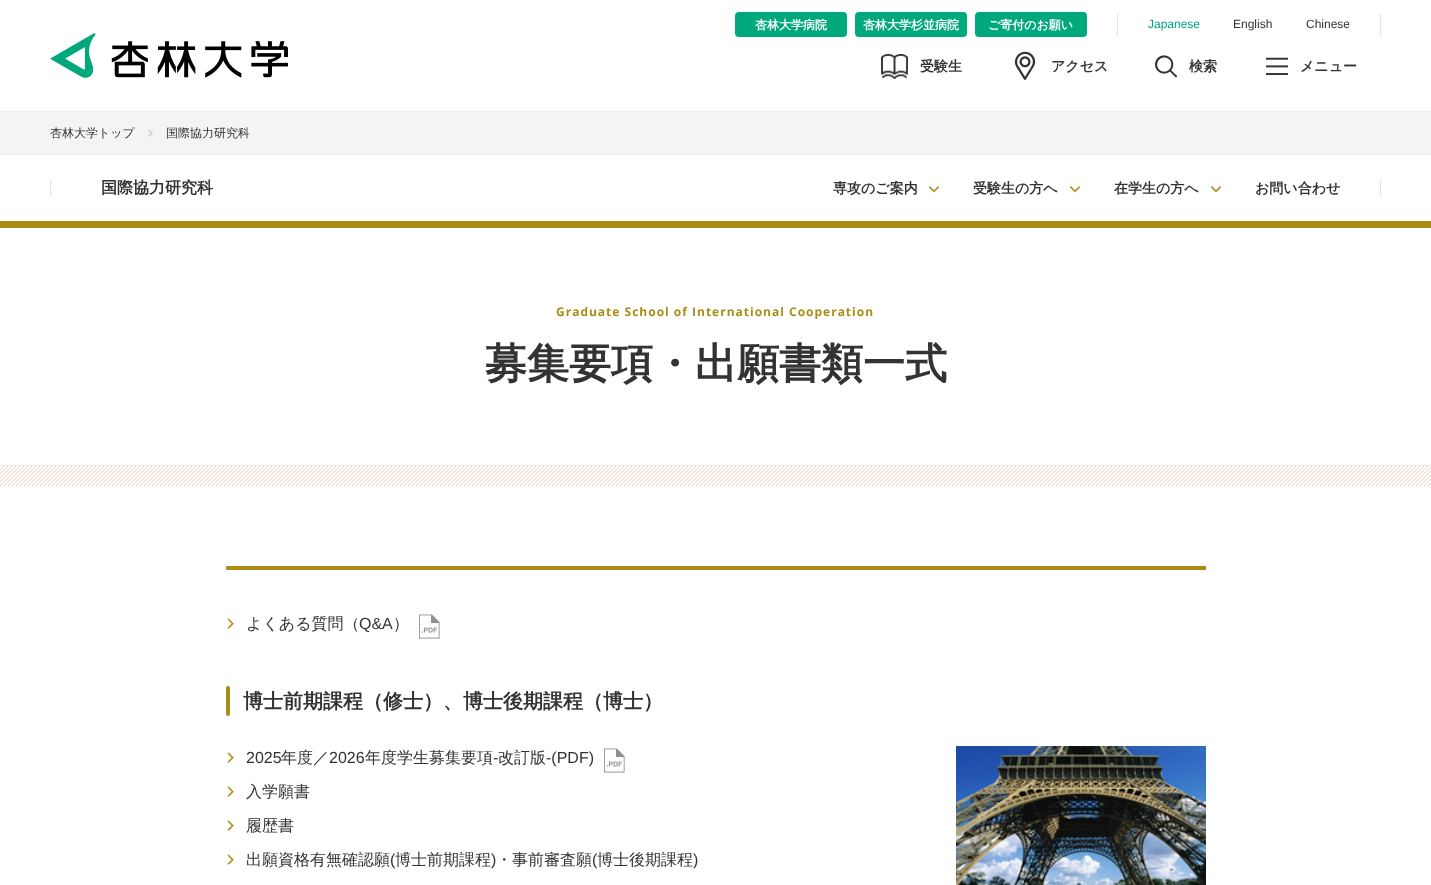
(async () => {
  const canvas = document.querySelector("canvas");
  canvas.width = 1431;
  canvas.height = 885;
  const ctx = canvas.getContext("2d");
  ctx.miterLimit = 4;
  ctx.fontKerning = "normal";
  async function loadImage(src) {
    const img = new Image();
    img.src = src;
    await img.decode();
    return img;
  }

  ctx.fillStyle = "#ffffff";
  ctx.fillRect(0, 0, 1431, 885);
  ctx.drawImage(await loadImage("img/1.png"), 50, 33, 238, 45);
  ctx.fillStyle = "#00a87b";
  ctx.beginPath();
  ctx.roundRect(735, 12, 112, 25, 4);
  ctx.fill();
  ctx.beginPath();
  ctx.roundRect(855, 12, 112, 25, 4);
  ctx.fill();
  ctx.beginPath();
  ctx.roundRect(975, 12, 112, 25, 4);
  ctx.fill();
  ctx.fillStyle = "#e2e2e2";
  ctx.fillRect(1380, 14, 1, 22);
  ctx.fillRect(1117, 14, 1, 22);
  ctx.drawImage(await loadImage("img/2.png"), 881, 54, 27, 25);
  ctx.drawImage(await loadImage("img/3.png"), 1014, 51, 22, 29);
  ctx.drawImage(await loadImage("img/4.png"), 1155, 55, 22, 23);
  ctx.drawImage(await loadImage("img/5.png"), 1266, 57, 22, 18);
  for (const [x, y, w, h, color] of [
    [0, 112, 1431, 42, "#f4f4f4"],
    [0, 111, 1431, 1, "#ebebeb"],
    [0, 154, 1431, 1, "#ebebeb"],
  ]) {
    ctx.fillStyle = color;
    ctx.fillRect(x, y, w, h);
  }
  ctx.drawImage(await loadImage("img/6.png"), 148, 129, 5, 8);
  ctx.fillStyle = "#e1e1e1";
  ctx.fillRect(1380, 180, 1, 16);
  ctx.fillRect(50, 180, 1, 16);
  ctx.drawImage(await loadImage("img/7.png"), 929, 186, 10, 7);
  ctx.drawImage(await loadImage("img/7.png"), 1070, 186, 10, 7);
  ctx.drawImage(await loadImage("img/7.png"), 1211, 186, 10, 7);
  ctx.fillStyle = "#ac8c14";
  ctx.fillRect(0, 221, 1431, 7);
  ctx.fillStyle = "#eaeaea";
  ctx.fillRect(0, 465, 1431, 1);
  ctx.drawImage(await loadImage("img/8.png"), 0, 466, 1431, 20);
  ctx.fillStyle = "#ac8c14";
  ctx.fillRect(226, 566, 980, 4);
  ctx.drawImage(await loadImage("img/9.png"), 227, 618, 7, 11);
  ctx.drawImage(await loadImage("img/10.png"), 419, 614, 21, 25);
  ctx.beginPath();
  ctx.roundRect(226, 686, 4, 30, 2);
  ctx.fill();
  ctx.drawImage(await loadImage("img/9.png"), 227, 752, 7, 11);
  ctx.drawImage(await loadImage("img/10.png"), 604, 748, 21, 25);
  ctx.drawImage(await loadImage("img/9.png"), 227, 786, 7, 11);
  ctx.drawImage(await loadImage("img/9.png"), 227, 820, 7, 11);
  ctx.drawImage(await loadImage("img/9.png"), 227, 854, 7, 11);
  ctx.drawImage(await loadImage("img/11.png"), 956, 746, 250, 139);
  ctx.font = "bold 12px WenQuanYi Zen Hei";
  ctx.fillStyle = "#ffffff";
  for (const [text, x, y] of [
    ["杏林大学病院", 755, 29],
    ["杏林大学杉並病院", 863, 29],
    ["ご寄付のお願い", 988, 29],
  ]) {
    ctx.fillText(text, x, y);
  }
  ctx.font = "12px Liberation Sans";
  ctx.fillStyle = "#00a87b";
  ctx.fillText("Japanese", 1148, 28);
  ctx.fillStyle = "#333333";
  ctx.fillText("English", 1233, 28);
  ctx.fillText("Chinese", 1306, 28);
  ctx.font = "bold 14px WenQuanYi Zen Hei";
  for (const [text, x, y] of [
    ["受験生", 920, 71],
    ["アクセス", 1051, 71],
    ["検索", 1189, 71],
    ["メニュー", 1300, 71],
  ]) {
    ctx.fillText(text, x, y);
  }
  ctx.font = "500 12px WenQuanYi Zen Hei";
  ctx.fillText("杏林大学トップ", 50, 137);
  ctx.fillText("国際協力研究科", 166, 137);
  ctx.font = "bold 16px WenQuanYi Zen Hei";
  ctx.fillText("国際協力研究科", 101, 193);
  ctx.font = "bold 14px WenQuanYi Zen Hei";
  for (const [text, x, y] of [
    ["専攻のご案内", 833, 193],
    ["受験生の方へ", 973, 193],
    ["在学生の方へ", 1114, 193],
    ["お問い合わせ", 1255, 193],
  ]) {
    ctx.fillText(text, x, y);
  }
  ctx.letterSpacing = "1px";
  ctx.font = "bold 12px Open Sans";
  ctx.fillStyle = "#ac8c14";
  ctx.fillText("Graduate School of International Cooperation", 556, 316);
  ctx.letterSpacing = "0px";
  ctx.font = "bold 42px WenQuanYi Zen Hei";
  ctx.fillStyle = "#333333";
  ctx.fillText("募集要項・出願書類一式", 485, 378);
  ctx.font = "500 16px WenQuanYi Zen Hei";
  ctx.fillText("よくある質問（", 246, 629);
  ctx.font = "16px Liberation Sans";
  ctx.fillText("Q&A", 359, 629);
  ctx.font = "500 16px WenQuanYi Zen Hei";
  ctx.fillText("）", 393, 629);
  ctx.font = "bold 20px WenQuanYi Zen Hei";
  ctx.fillText("博士前期課程（修士）、博士後期課程（博士）", 243, 708);
  ctx.font = "16px Liberation Sans";
  ctx.fillText("2025", 246, 763);
  ctx.font = "500 16px WenQuanYi Zen Hei";
  ctx.fillText("年度／", 281, 763);
  ctx.font = "16px Liberation Sans";
  ctx.fillText("2026", 329, 763);
  ctx.font = "500 16px WenQuanYi Zen Hei";
  ctx.fillText("年度学生募集要項", 365, 763);
  ctx.font = "16px Liberation Sans";
  ctx.fillText("-", 493, 763);
  ctx.font = "500 16px WenQuanYi Zen Hei";
  ctx.fillText("改訂版", 498, 763);
  ctx.font = "16px Liberation Sans";
  ctx.fillText("-(PDF)", 546, 763);
  ctx.font = "500 16px WenQuanYi Zen Hei";
  for (const [text, x, y] of [
    ["入学願書", 246, 797],
    ["履歴書", 246, 831],
    ["出願資格有無確認願", 246, 865],
  ]) {
    ctx.fillText(text, x, y);
  }
  ctx.font = "16px Liberation Sans";
  ctx.fillText("(", 390, 865);
  ctx.font = "500 16px WenQuanYi Zen Hei";
  ctx.fillText("博士前期課程", 395, 865);
  ctx.font = "16px Liberation Sans";
  ctx.fillText(")", 491, 865);
  ctx.font = "500 16px WenQuanYi Zen Hei";
  ctx.fillText("・事前審査願", 496, 865);
  ctx.font = "16px Liberation Sans";
  ctx.fillText("(", 592, 865);
  ctx.font = "500 16px WenQuanYi Zen Hei";
  ctx.fillText("博士後期課程", 597, 865);
  ctx.font = "16px Liberation Sans";
  ctx.fillText(")", 693, 865);
})();
